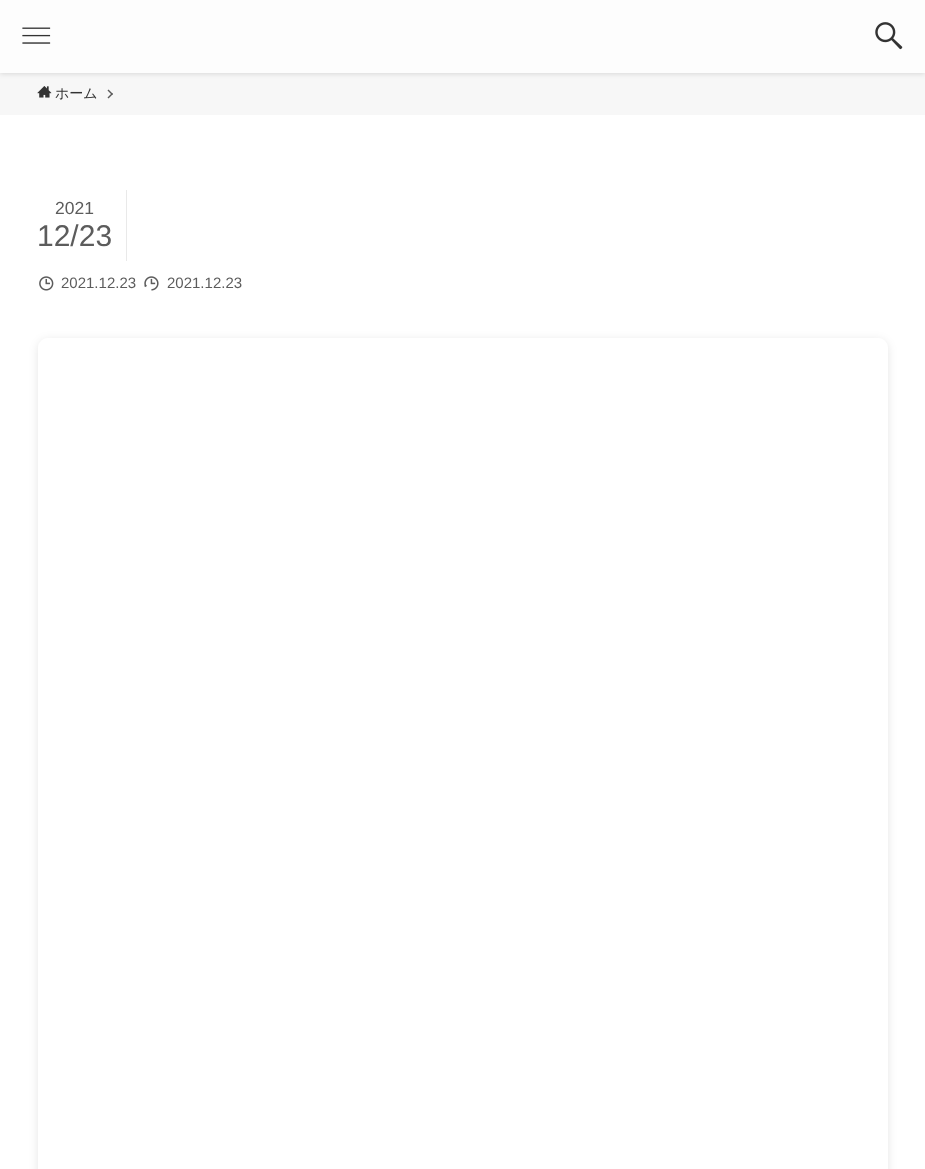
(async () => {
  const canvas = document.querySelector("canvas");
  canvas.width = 925;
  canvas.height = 1169;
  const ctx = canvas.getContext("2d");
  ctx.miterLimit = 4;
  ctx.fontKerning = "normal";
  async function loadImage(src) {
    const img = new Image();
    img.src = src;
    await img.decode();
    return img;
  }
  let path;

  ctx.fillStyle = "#ffffff";
  ctx.fillRect(0, 0, 925, 1169);
  ctx.fillStyle = "#f7f7f7";
  ctx.fillRect(0, 73, 925, 42);
  ctx.fillStyle = "rgba(0, 0, 0, 0.12)";
  ctx.filter = "blur(2.5px)";
  ctx.beginPath();
  ctx.rect(0, 1, 925, 73);
  ctx.fill();
  ctx.filter = "none";
  ctx.fillStyle = "#fdfdfd";
  ctx.fillRect(0, 0, 925, 73);
  ctx.drawImage(await loadImage("img/1.png"), 22, 27, 29, 17);
  ctx.drawImage(await loadImage("img/2.png"), 875, 22, 28, 28);
  ctx.drawImage(await loadImage("img/3.png"), 37, 86, 15, 12);
  ctx.fillStyle = "#5a5a5a";
  path = new Path2D("M108.5 89.5L113 94L112 95L107.5 90.5Z");
  ctx.fill(path);
  path = new Path2D("M112 93L113 94L108.5 98.5L107.5 97.5Z");
  ctx.fill(path);
  ctx.fillStyle = "#e9e9e9";
  ctx.fillRect(126, 190, 1, 71);
  ctx.drawImage(await loadImage("img/4.png"), 39, 276, 15, 15);
  ctx.drawImage(await loadImage("img/5.png"), 144, 276, 15, 15);
  ctx.save();
  path = new Path2D("M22 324H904V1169H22ZM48 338H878C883.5 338 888 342.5 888 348V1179C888 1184.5 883.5 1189 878 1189H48C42.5 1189 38 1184.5 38 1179V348C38 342.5 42.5 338 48 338Z");
  ctx.clip(path, "evenodd");
  ctx.fillStyle = "rgba(0, 0, 0, 0.1)";
  ctx.filter = "blur(5px)";
  ctx.beginPath();
  ctx.roundRect(38, 340, 850, 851, 10);
  ctx.fill();
  ctx.filter = "none";
  ctx.restore();
  ctx.font = "500 14px WenQuanYi Zen Hei";
  ctx.fillStyle = "#333333";
  ctx.fillText("ホーム", 55, 98);
  ctx.font = "17.5px Liberation Sans";
  ctx.fillStyle = "#5c5c5c";
  ctx.fillText("2021", 55, 214);
  ctx.font = "30px Liberation Sans";
  ctx.fillText("12/23", 37, 246);
  ctx.font = "15px Liberation Sans";
  ctx.fillText("2021.12.23", 61, 288);
  ctx.fillText("2021.12.23", 167, 288);
})();
